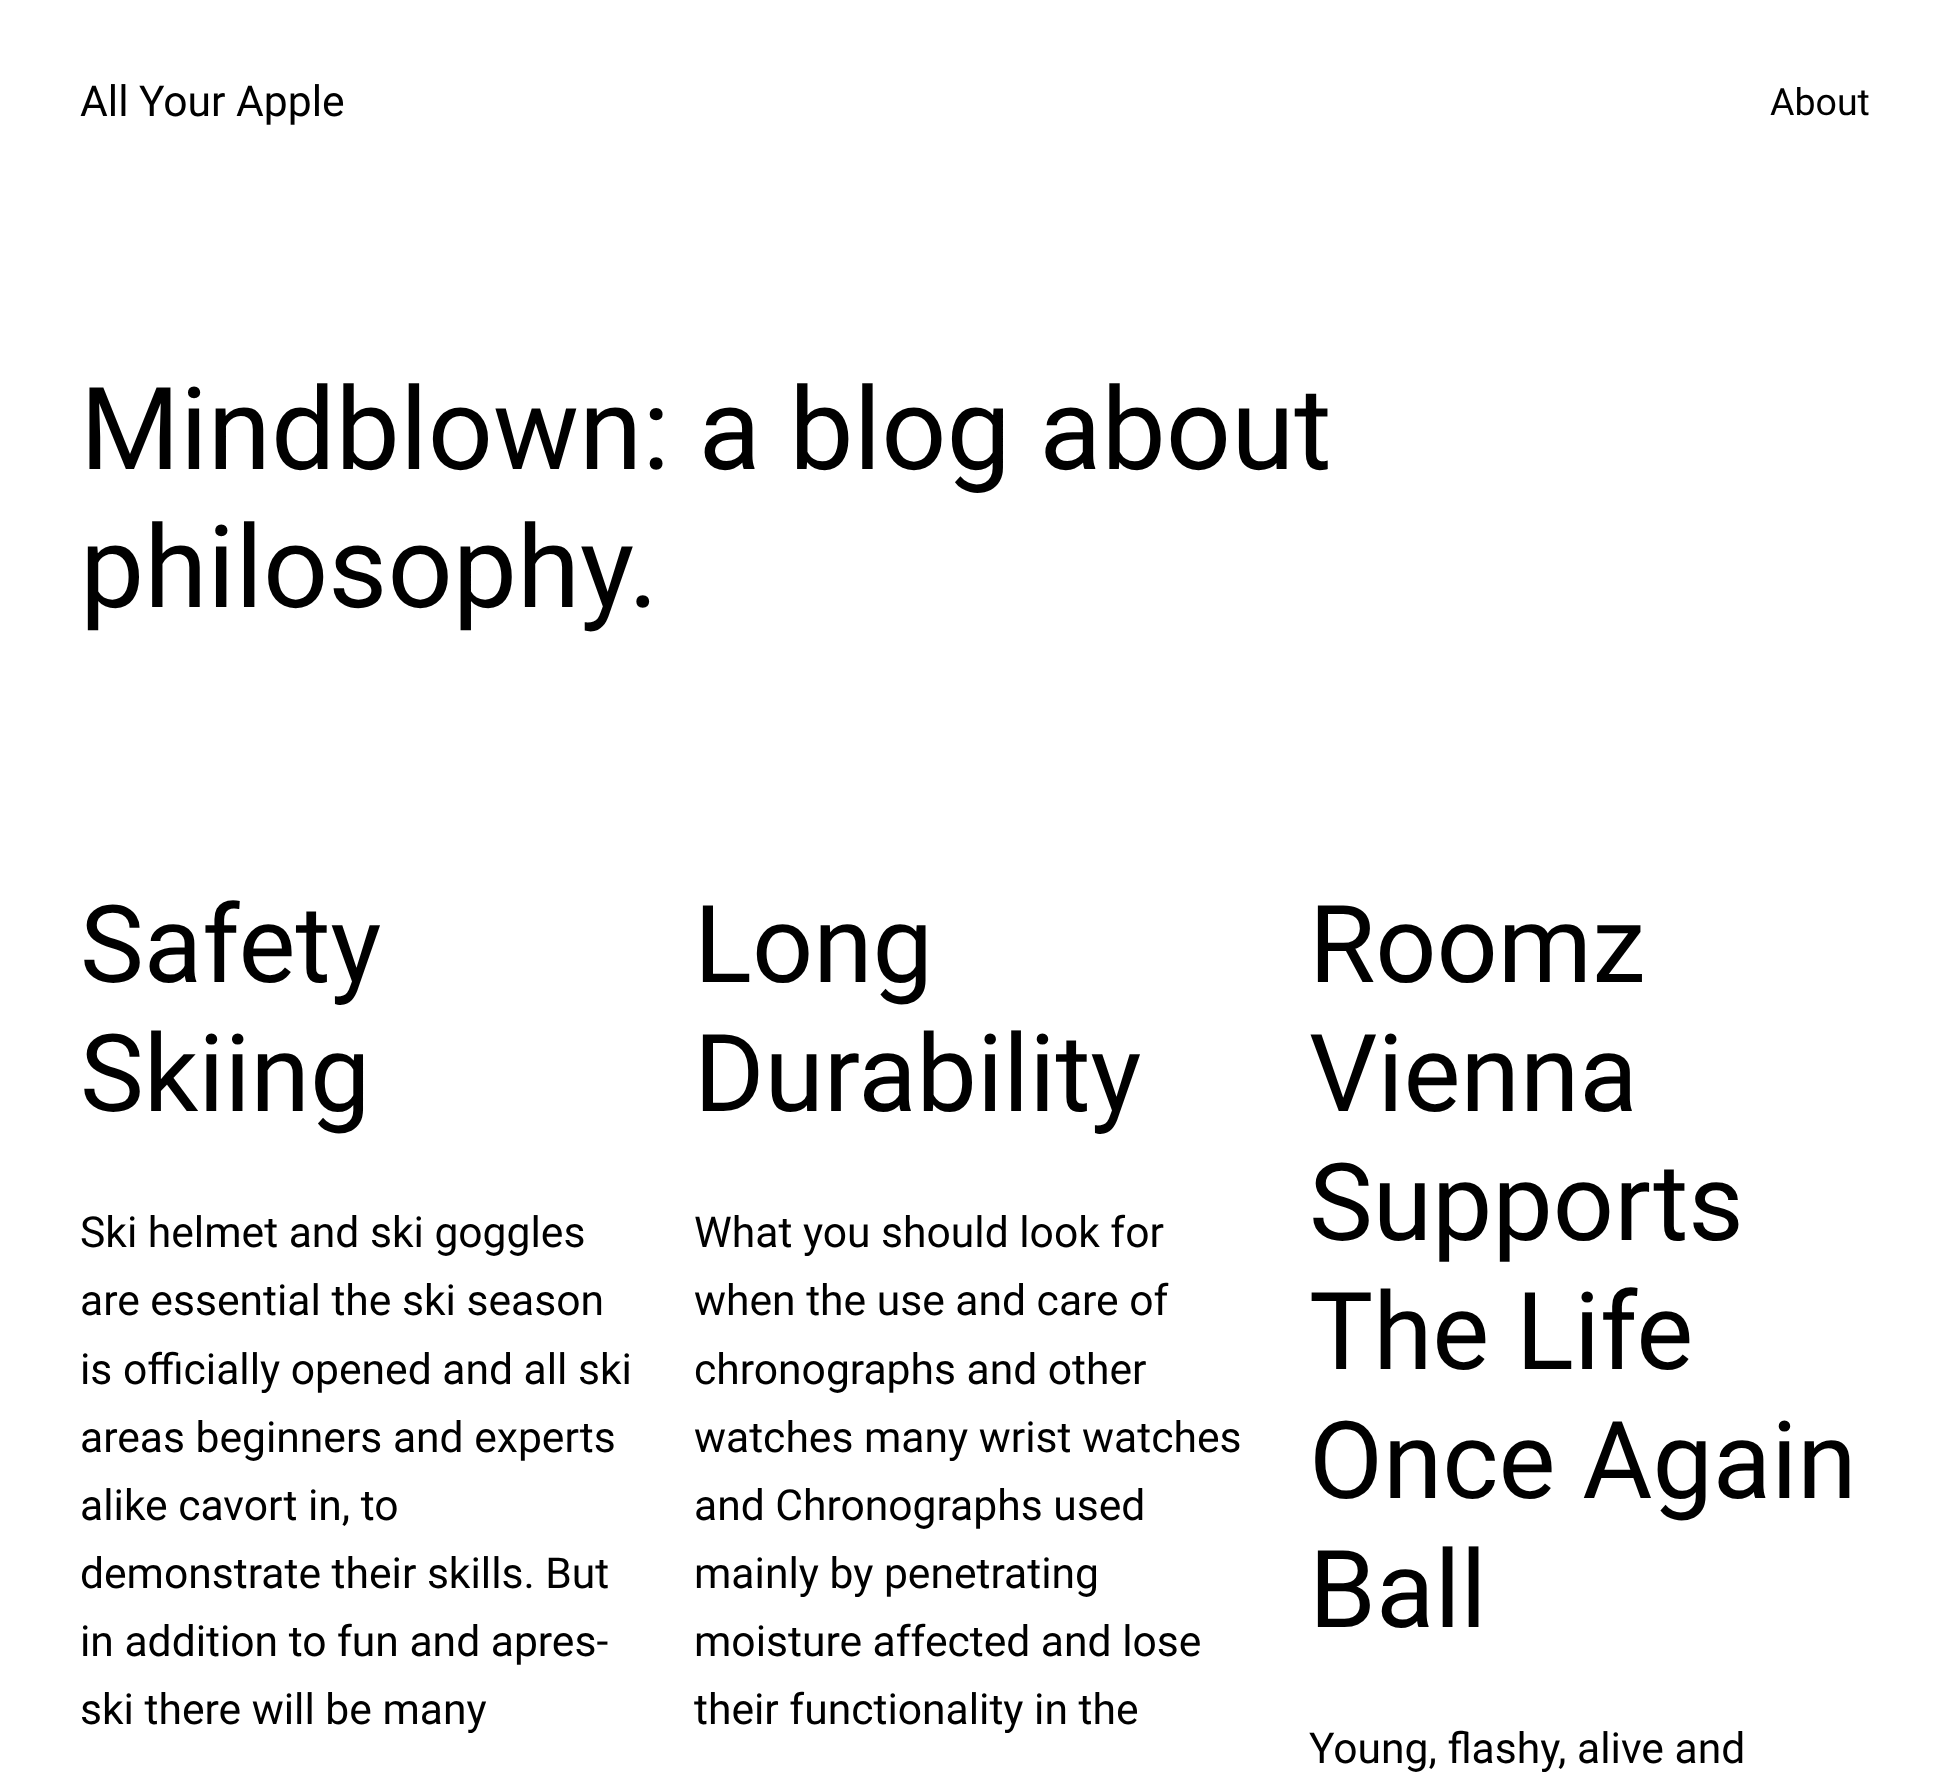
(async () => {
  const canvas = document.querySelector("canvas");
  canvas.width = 1949;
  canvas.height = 1773;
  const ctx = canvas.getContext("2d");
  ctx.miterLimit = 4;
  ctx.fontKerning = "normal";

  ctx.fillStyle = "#ffffff";
  ctx.fillRect(0, 0, 1949, 1773);
  ctx.font = "42.6px Roboto";
  ctx.fillStyle = "#000000";
  ctx.fillText("All Your Apple", 80, 116);
  ctx.font = "37.5px Roboto";
  ctx.fillText("About", 1770, 115);
  ctx.font = "114.5px Roboto";
  ctx.fillText("Mindblown: a blog about", 80, 469);
  ctx.fillText("philosophy.", 80, 607);
  ctx.font = "107.5px Roboto";
  ctx.fillText("Safety", 80, 982);
  ctx.fillText("Skiing", 80, 1111);
  ctx.font = "42.6px Roboto";
  for (const [text, x, y] of [
    ["Ski helmet and ski goggles", 80, 1247],
    ["are essential the ski season", 80, 1315],
    ["is officially opened and all ski", 80, 1384],
    ["areas beginners and experts", 80, 1452],
    ["alike cavort in, to", 80, 1520],
    ["demonstrate their skills. But", 80, 1588],
    ["in addition to fun and apres-", 80, 1656],
    ["ski there will be many", 80, 1724],
  ]) {
    ctx.fillText(text, x, y);
  }
  ctx.font = "107.5px Roboto";
  ctx.fillText("Long", 694, 982);
  ctx.fillText("Durability", 694, 1111);
  ctx.font = "42.6px Roboto";
  for (const [text, x, y] of [
    ["What you should look for", 694, 1247],
    ["when the use and care of", 694, 1315],
    ["chronographs and other", 694, 1384],
    ["watches many wrist watches", 694, 1452],
    ["and Chronographs used", 694, 1520],
    ["mainly by penetrating", 694, 1588],
    ["moisture affected and lose", 694, 1656],
    ["their functionality in the", 694, 1724],
  ]) {
    ctx.fillText(text, x, y);
  }
  ctx.font = "107.5px Roboto";
  for (const [text, x, y] of [
    ["Roomz", 1309, 982],
    ["Vienna", 1309, 1111],
    ["Supports", 1309, 1240],
    ["The Life", 1309, 1369],
    ["Once Again", 1309, 1498],
    ["Ball", 1309, 1627],
  ]) {
    ctx.fillText(text, x, y);
  }
  ctx.font = "42.6px Roboto";
  ctx.fillText("Young, flashy, alive and", 1309, 1763);
})();
